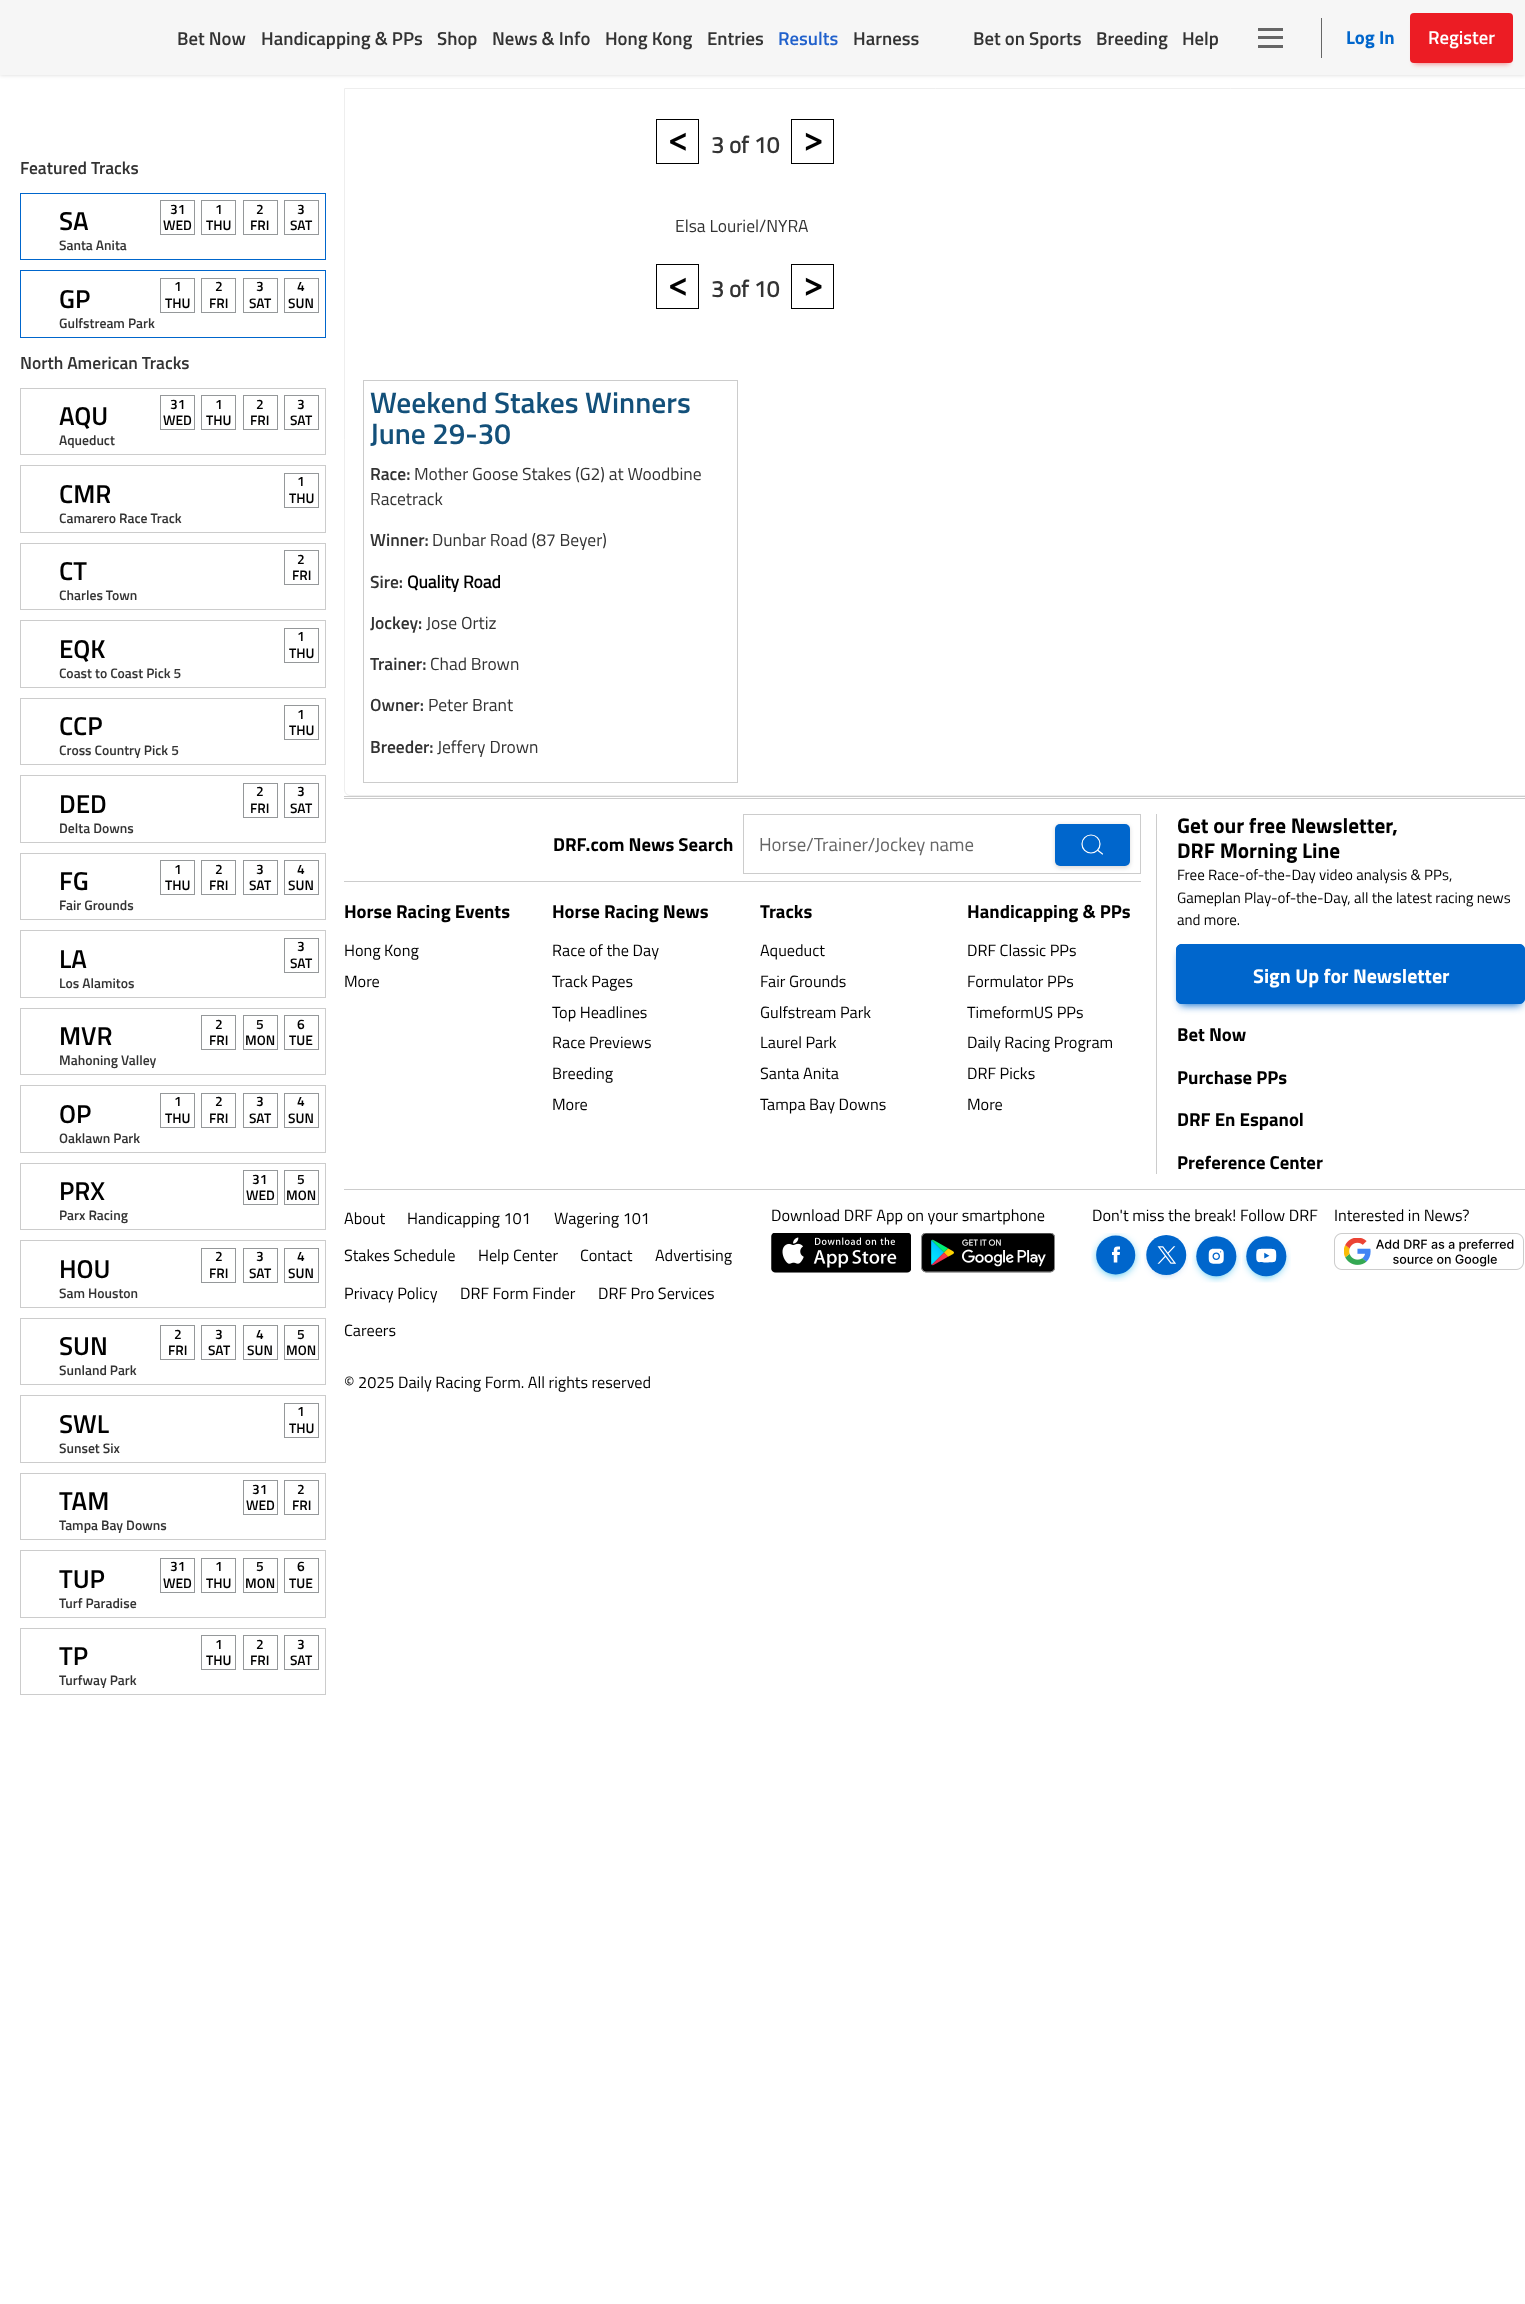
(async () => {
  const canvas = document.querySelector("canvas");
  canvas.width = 1525;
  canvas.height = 2304;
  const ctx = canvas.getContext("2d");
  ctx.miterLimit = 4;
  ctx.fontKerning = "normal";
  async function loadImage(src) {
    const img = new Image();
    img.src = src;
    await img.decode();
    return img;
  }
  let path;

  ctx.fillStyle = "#ffffff";
  ctx.fillRect(0, 0, 1525, 2304);
  ctx.fillStyle = "rgba(0, 0, 0, 0.16)";
  ctx.filter = "blur(2px)";
  ctx.beginPath();
  ctx.rect(0, 0, 1525, 75);
  ctx.fill();
  ctx.filter = "none";
  for (const [x, y, w, h, color] of [
    [0, 0, 1525, 75, "#f6f6f6"],
    [1258, 36, 25, 3, "#666666"],
    [1258, 28, 25, 3, "#666666"],
    [1258, 45, 25, 3, "#666666"],
    [1321, 18, 1, 40, "#666666"],
  ]) {
    ctx.fillStyle = color;
    ctx.fillRect(x, y, w, h);
  }
  ctx.fillStyle = "rgba(236, 28, 36, 0.5)";
  ctx.filter = "blur(2.5px)";
  ctx.beginPath();
  ctx.rect(1414, 21, 95, 43);
  ctx.fill();
  ctx.filter = "none";
  ctx.fillStyle = "#ec1c24";
  ctx.beginPath();
  ctx.roundRect(1410, 13, 103, 50, 4);
  ctx.fill();
  ctx.strokeStyle = "#0066cc";
  ctx.strokeRect(20.5, 193.5, 305, 66);
  ctx.strokeStyle = "#95989a";
  ctx.strokeRect(160.5, 200.5, 34, 34);
  ctx.strokeRect(201.5, 200.5, 34, 34);
  ctx.strokeRect(243.5, 200.5, 34, 34);
  ctx.strokeRect(284.5, 200.5, 34, 34);
  ctx.strokeStyle = "#0066cc";
  ctx.strokeRect(20.5, 270.5, 305, 67);
  ctx.strokeStyle = "#95989a";
  ctx.strokeRect(160.5, 278.5, 34, 34);
  ctx.strokeRect(201.5, 278.5, 34, 34);
  ctx.strokeRect(243.5, 278.5, 34, 34);
  ctx.strokeRect(284.5, 278.5, 34, 34);
  ctx.strokeStyle = "#cccccc";
  ctx.strokeRect(20.5, 388.5, 305, 66);
  ctx.strokeStyle = "#95989a";
  ctx.strokeRect(160.5, 395.5, 34, 34);
  ctx.strokeRect(201.5, 395.5, 34, 34);
  ctx.strokeRect(243.5, 395.5, 34, 34);
  ctx.strokeRect(284.5, 395.5, 34, 34);
  ctx.strokeStyle = "#cccccc";
  ctx.strokeRect(20.5, 465.5, 305, 67);
  ctx.strokeStyle = "#95989a";
  ctx.strokeRect(284.5, 473.5, 34, 34);
  ctx.strokeStyle = "#cccccc";
  ctx.strokeRect(20.5, 543.5, 305, 66);
  ctx.strokeStyle = "#95989a";
  ctx.strokeRect(284.5, 550.5, 34, 34);
  ctx.strokeStyle = "#cccccc";
  ctx.strokeRect(20.5, 620.5, 305, 67);
  ctx.strokeStyle = "#95989a";
  ctx.strokeRect(284.5, 628.5, 34, 34);
  ctx.strokeStyle = "#cccccc";
  ctx.strokeRect(20.5, 698.5, 305, 66);
  ctx.strokeStyle = "#95989a";
  ctx.strokeRect(284.5, 705.5, 34, 34);
  ctx.strokeStyle = "#cccccc";
  ctx.strokeRect(20.5, 775.5, 305, 67);
  ctx.strokeStyle = "#95989a";
  ctx.strokeRect(243.5, 783.5, 34, 34);
  ctx.strokeRect(284.5, 783.5, 34, 34);
  ctx.strokeStyle = "#cccccc";
  ctx.strokeRect(20.5, 853.5, 305, 66);
  ctx.strokeStyle = "#95989a";
  ctx.strokeRect(160.5, 860.5, 34, 34);
  ctx.strokeRect(201.5, 860.5, 34, 34);
  ctx.strokeRect(243.5, 860.5, 34, 34);
  ctx.strokeRect(284.5, 860.5, 34, 34);
  ctx.strokeStyle = "#cccccc";
  ctx.strokeRect(20.5, 930.5, 305, 67);
  ctx.strokeStyle = "#95989a";
  ctx.strokeRect(284.5, 938.5, 34, 34);
  ctx.strokeStyle = "#cccccc";
  ctx.strokeRect(20.5, 1008.5, 305, 66);
  ctx.strokeStyle = "#95989a";
  ctx.strokeRect(201.5, 1015.5, 34, 34);
  ctx.strokeRect(243.5, 1015.5, 34, 34);
  ctx.strokeRect(284.5, 1015.5, 34, 34);
  ctx.strokeStyle = "#cccccc";
  ctx.strokeRect(20.5, 1085.5, 305, 67);
  ctx.strokeStyle = "#95989a";
  ctx.strokeRect(160.5, 1093.5, 34, 34);
  ctx.strokeRect(201.5, 1093.5, 34, 34);
  ctx.strokeRect(243.5, 1093.5, 34, 34);
  ctx.strokeRect(284.5, 1093.5, 34, 34);
  ctx.strokeStyle = "#cccccc";
  ctx.strokeRect(20.5, 1163.5, 305, 66);
  ctx.strokeStyle = "#95989a";
  ctx.strokeRect(243.5, 1170.5, 34, 34);
  ctx.strokeRect(284.5, 1170.5, 34, 34);
  ctx.strokeStyle = "#cccccc";
  ctx.strokeRect(20.5, 1240.5, 305, 67);
  ctx.strokeStyle = "#95989a";
  ctx.strokeRect(201.5, 1248.5, 34, 34);
  ctx.strokeRect(243.5, 1248.5, 34, 34);
  ctx.strokeRect(284.5, 1248.5, 34, 34);
  ctx.strokeStyle = "#cccccc";
  ctx.strokeRect(20.5, 1318.5, 305, 66);
  ctx.strokeStyle = "#95989a";
  ctx.strokeRect(160.5, 1325.5, 34, 34);
  ctx.strokeRect(201.5, 1325.5, 34, 34);
  ctx.strokeRect(243.5, 1325.5, 34, 34);
  ctx.strokeRect(284.5, 1325.5, 34, 34);
  ctx.strokeStyle = "#cccccc";
  ctx.strokeRect(20.5, 1395.5, 305, 67);
  ctx.strokeStyle = "#95989a";
  ctx.strokeRect(284.5, 1403.5, 34, 34);
  ctx.strokeStyle = "#cccccc";
  ctx.strokeRect(20.5, 1473.5, 305, 66);
  ctx.strokeStyle = "#95989a";
  ctx.strokeRect(243.5, 1480.5, 34, 34);
  ctx.strokeRect(284.5, 1480.5, 34, 34);
  ctx.strokeStyle = "#cccccc";
  ctx.strokeRect(20.5, 1550.5, 305, 67);
  ctx.strokeStyle = "#95989a";
  ctx.strokeRect(160.5, 1558.5, 34, 34);
  ctx.strokeRect(201.5, 1558.5, 34, 34);
  ctx.strokeRect(243.5, 1558.5, 34, 34);
  ctx.strokeRect(284.5, 1558.5, 34, 34);
  ctx.strokeStyle = "#cccccc";
  ctx.strokeRect(20.5, 1628.5, 305, 66);
  ctx.strokeStyle = "#95989a";
  ctx.strokeRect(201.5, 1635.5, 34, 34);
  ctx.strokeRect(243.5, 1635.5, 34, 34);
  ctx.strokeRect(284.5, 1635.5, 34, 34);
  path = new Path2D("M344.5 88.5H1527.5V795.5H350C347 795.5 344.5 793 344.5 790Z");
  ctx.strokeStyle = "#eeeeee";
  ctx.stroke(path);
  ctx.strokeStyle = "#000000";
  ctx.strokeRect(656.5, 119.5, 42, 44);
  ctx.strokeRect(791.5, 119.5, 42, 44);
  ctx.strokeRect(656.5, 264.5, 42, 44);
  ctx.strokeRect(791.5, 264.5, 42, 44);
  ctx.strokeStyle = "#cccccc";
  ctx.strokeRect(363.5, 380.5, 374, 402);
  for (const [x, y, w, h, color] of [
    [344, 796, 1181, 1, "#cccccc"],
    [344, 798, 1181, 1, "#cccccc"],
    [344, 1189, 1181, 1, "#cccccc"],
    [1156, 814, 1, 360, "#cccccc"],
    [344, 881, 797, 1, "#cccccc"],
  ]) {
    ctx.fillStyle = color;
    ctx.fillRect(x, y, w, h);
  }
  ctx.strokeRect(743.5, 814.5, 397, 59);
  ctx.fillStyle = "rgba(0, 0, 0, 0.15)";
  ctx.filter = "blur(2px)";
  ctx.beginPath();
  ctx.roundRect(1055, 825, 75, 43, 5);
  ctx.fill();
  ctx.filter = "none";
  ctx.fillStyle = "#0066cc";
  ctx.beginPath();
  ctx.roundRect(1055, 824, 75, 42, 5);
  ctx.fill();
  ctx.beginPath();
  ctx.arc(1091, 844, 9, 0, Math.PI * 2);
  ctx.strokeStyle = "#ffffff";
  ctx.lineWidth = 1.2;
  ctx.stroke();
  path = new Path2D("M1098 850.5L1102.5 854");
  ctx.lineCap = "round";
  ctx.lineJoin = "round";
  ctx.stroke(path);
  ctx.filter = "blur(4px)";
  ctx.beginPath();
  ctx.roundRect(1180, 953, 341, 52, 1);
  ctx.fill();
  ctx.filter = "none";
  ctx.beginPath();
  ctx.roundRect(1176.5, 944.5, 348, 59, 4.5);
  ctx.fill();
  ctx.strokeStyle = "#0066cc";
  ctx.lineWidth = 1;
  ctx.lineJoin = "miter";
  ctx.stroke();
  ctx.drawImage(await loadImage("img/1.png"), 771, 1233, 140, 40);
  ctx.drawImage(await loadImage("img/2.png"), 921, 1233, 134, 40);
  ctx.drawImage(await loadImage("img/3.png"), 1091, 1233, 50, 49);
  ctx.drawImage(await loadImage("img/4.png"), 1144, 1235, 44, 45);
  ctx.drawImage(await loadImage("img/5.png"), 1192, 1235, 49, 48);
  ctx.drawImage(await loadImage("img/6.png"), 1242, 1235, 49, 48);
  ctx.drawImage(await loadImage("img/7.png"), 1334, 1233, 190, 37);
  ctx.font = "600 18.75px Titillium Web";
  ctx.fillStyle = "#333333";
  for (const [text, x, y] of [
    ["Bet Now", 177, 45],
    ["Handicapping & PPs", 261, 45],
    ["Shop", 437, 45],
    ["News & Info", 492, 45],
    ["Hong Kong", 605, 45],
    ["Entries", 707, 45],
  ]) {
    ctx.fillText(text, x, y);
  }
  ctx.fillStyle = "#2161cc";
  ctx.fillText("Results", 778, 45);
  ctx.fillStyle = "#333333";
  for (const [text, x, y] of [
    ["Harness", 853, 45],
    ["Bet on Sports", 973, 45],
    ["Breeding", 1096, 45],
    ["Help", 1182, 45],
  ]) {
    ctx.fillText(text, x, y);
  }
  ctx.font = "bold 18.75px 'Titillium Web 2'";
  ctx.fillStyle = "#0066cc";
  ctx.fillText("Log In", 1346, 44);
  ctx.font = "600 18.75px Titillium Web";
  ctx.fillStyle = "#ffffff";
  ctx.fillText("Register", 1428, 44);
  ctx.font = "600 17.5px Titillium Web";
  ctx.fillStyle = "#333333";
  ctx.fillText("Featured Tracks", 20, 174);
  ctx.font = "600 26px Titillium Web";
  ctx.fillStyle = "#000000";
  ctx.fillText("SA", 59, 230);
  ctx.font = "600 13.75px Titillium Web";
  for (const [text, x, y] of [
    ["31", 170, 214],
    ["WED", 163, 230],
    ["1", 215, 214],
    ["THU", 206, 230],
    ["2", 256, 214],
    ["FRI", 250, 230],
    ["3", 297, 214],
    ["SAT", 290, 230],
  ]) {
    ctx.fillText(text, x, y);
  }
  ctx.fillStyle = "#333333";
  ctx.fillText("Santa Anita", 59, 250);
  ctx.font = "600 26px Titillium Web";
  ctx.fillStyle = "#000000";
  ctx.fillText("GP", 59, 308);
  ctx.font = "600 13.75px Titillium Web";
  for (const [text, x, y] of [
    ["1", 174, 291],
    ["THU", 165, 308],
    ["2", 215, 291],
    ["FRI", 209, 308],
    ["3", 256, 291],
    ["SAT", 249, 308],
    ["4", 297, 291],
    ["SUN", 288, 308],
  ]) {
    ctx.fillText(text, x, y);
  }
  ctx.fillStyle = "#333333";
  ctx.fillText("Gulfstream Park", 59, 328);
  ctx.font = "600 17.5px Titillium Web";
  ctx.fillText("North American Tracks", 20, 369);
  ctx.font = "600 26px Titillium Web";
  ctx.fillStyle = "#000000";
  ctx.fillText("AQU", 59, 425);
  ctx.font = "600 13.75px Titillium Web";
  for (const [text, x, y] of [
    ["31", 170, 409],
    ["WED", 163, 425],
    ["1", 215, 409],
    ["THU", 206, 425],
    ["2", 256, 409],
    ["FRI", 250, 425],
    ["3", 297, 409],
    ["SAT", 290, 425],
  ]) {
    ctx.fillText(text, x, y);
  }
  ctx.fillStyle = "#333333";
  ctx.fillText("Aqueduct", 59, 445);
  ctx.font = "600 26px Titillium Web";
  ctx.fillStyle = "#000000";
  ctx.fillText("CMR", 59, 503);
  ctx.font = "600 13.75px Titillium Web";
  ctx.fillText("1", 297, 486);
  ctx.fillText("THU", 289, 503);
  ctx.fillStyle = "#333333";
  ctx.fillText("Camarero Race Track", 59, 523);
  ctx.font = "600 26px Titillium Web";
  ctx.fillStyle = "#000000";
  ctx.fillText("CT", 59, 580);
  ctx.font = "600 13.75px Titillium Web";
  ctx.fillText("2", 297, 564);
  ctx.fillText("FRI", 292, 580);
  ctx.fillStyle = "#333333";
  ctx.fillText("Charles Town", 59, 600);
  ctx.font = "600 26px Titillium Web";
  ctx.fillStyle = "#000000";
  ctx.fillText("EQK", 59, 658);
  ctx.font = "600 13.75px Titillium Web";
  ctx.fillText("1", 297, 641);
  ctx.fillText("THU", 289, 658);
  ctx.fillStyle = "#333333";
  ctx.fillText("Coast to Coast Pick 5", 59, 678);
  ctx.font = "600 26px Titillium Web";
  ctx.fillStyle = "#000000";
  ctx.fillText("CCP", 59, 735);
  ctx.font = "600 13.75px Titillium Web";
  ctx.fillText("1", 297, 719);
  ctx.fillText("THU", 289, 735);
  ctx.fillStyle = "#333333";
  ctx.fillText("Cross Country Pick 5", 59, 755);
  ctx.font = "600 26px Titillium Web";
  ctx.fillStyle = "#000000";
  ctx.fillText("DED", 59, 813);
  ctx.font = "600 13.75px Titillium Web";
  for (const [text, x, y] of [
    ["2", 256, 796],
    ["FRI", 250, 813],
    ["3", 297, 796],
    ["SAT", 290, 813],
  ]) {
    ctx.fillText(text, x, y);
  }
  ctx.fillStyle = "#333333";
  ctx.fillText("Delta Downs", 59, 833);
  ctx.font = "600 26px Titillium Web";
  ctx.fillStyle = "#000000";
  ctx.fillText("FG", 59, 890);
  ctx.font = "600 13.75px Titillium Web";
  for (const [text, x, y] of [
    ["1", 174, 874],
    ["THU", 165, 890],
    ["2", 215, 874],
    ["FRI", 209, 890],
    ["3", 256, 874],
    ["SAT", 249, 890],
    ["4", 297, 874],
    ["SUN", 288, 890],
  ]) {
    ctx.fillText(text, x, y);
  }
  ctx.fillStyle = "#333333";
  ctx.fillText("Fair Grounds", 59, 910);
  ctx.font = "600 26px Titillium Web";
  ctx.fillStyle = "#000000";
  ctx.fillText("LA", 59, 968);
  ctx.font = "600 13.75px Titillium Web";
  ctx.fillText("3", 297, 951);
  ctx.fillText("SAT", 290, 968);
  ctx.fillStyle = "#333333";
  ctx.fillText("Los Alamitos", 59, 988);
  ctx.font = "600 26px Titillium Web";
  ctx.fillStyle = "#000000";
  ctx.fillText("MVR", 59, 1045);
  ctx.font = "600 13.75px Titillium Web";
  for (const [text, x, y] of [
    ["2", 215, 1029],
    ["FRI", 209, 1045],
    ["5", 256, 1029],
    ["MON", 245, 1045],
    ["6", 297, 1029],
    ["TUE", 289, 1045],
  ]) {
    ctx.fillText(text, x, y);
  }
  ctx.fillStyle = "#333333";
  ctx.fillText("Mahoning Valley", 59, 1065);
  ctx.font = "600 26px Titillium Web";
  ctx.fillStyle = "#000000";
  ctx.fillText("OP", 59, 1123);
  ctx.font = "600 13.75px Titillium Web";
  for (const [text, x, y] of [
    ["1", 174, 1106],
    ["THU", 165, 1123],
    ["2", 215, 1106],
    ["FRI", 209, 1123],
    ["3", 256, 1106],
    ["SAT", 249, 1123],
    ["4", 297, 1106],
    ["SUN", 288, 1123],
  ]) {
    ctx.fillText(text, x, y);
  }
  ctx.fillStyle = "#333333";
  ctx.fillText("Oaklawn Park", 59, 1143);
  ctx.font = "600 26px Titillium Web";
  ctx.fillStyle = "#000000";
  ctx.fillText("PRX", 59, 1200);
  ctx.font = "600 13.75px Titillium Web";
  for (const [text, x, y] of [
    ["31", 252, 1184],
    ["WED", 246, 1200],
    ["5", 297, 1184],
    ["MON", 286, 1200],
  ]) {
    ctx.fillText(text, x, y);
  }
  ctx.fillStyle = "#333333";
  ctx.fillText("Parx Racing", 59, 1220);
  ctx.font = "600 26px Titillium Web";
  ctx.fillStyle = "#000000";
  ctx.fillText("HOU", 59, 1278);
  ctx.font = "600 13.75px Titillium Web";
  for (const [text, x, y] of [
    ["2", 215, 1261],
    ["FRI", 209, 1278],
    ["3", 256, 1261],
    ["SAT", 249, 1278],
    ["4", 297, 1261],
    ["SUN", 288, 1278],
  ]) {
    ctx.fillText(text, x, y);
  }
  ctx.fillStyle = "#333333";
  ctx.fillText("Sam Houston", 59, 1298);
  ctx.font = "600 26px Titillium Web";
  ctx.fillStyle = "#000000";
  ctx.fillText("SUN", 59, 1355);
  ctx.font = "600 13.75px Titillium Web";
  for (const [text, x, y] of [
    ["2", 174, 1339],
    ["FRI", 168, 1355],
    ["3", 215, 1339],
    ["SAT", 208, 1355],
    ["4", 256, 1339],
    ["SUN", 247, 1355],
    ["5", 297, 1339],
    ["MON", 286, 1355],
  ]) {
    ctx.fillText(text, x, y);
  }
  ctx.fillStyle = "#333333";
  ctx.fillText("Sunland Park", 59, 1375);
  ctx.font = "600 26px Titillium Web";
  ctx.fillStyle = "#000000";
  ctx.fillText("SWL", 59, 1433);
  ctx.font = "600 13.75px Titillium Web";
  ctx.fillText("1", 297, 1416);
  ctx.fillText("THU", 289, 1433);
  ctx.fillStyle = "#333333";
  ctx.fillText("Sunset Six", 59, 1453);
  ctx.font = "600 26px Titillium Web";
  ctx.fillStyle = "#000000";
  ctx.fillText("TAM", 59, 1510);
  ctx.font = "600 13.75px Titillium Web";
  for (const [text, x, y] of [
    ["31", 252, 1494],
    ["WED", 246, 1510],
    ["2", 297, 1494],
    ["FRI", 292, 1510],
  ]) {
    ctx.fillText(text, x, y);
  }
  ctx.fillStyle = "#333333";
  ctx.fillText("Tampa Bay Downs", 59, 1530);
  ctx.font = "600 26px Titillium Web";
  ctx.fillStyle = "#000000";
  ctx.fillText("TUP", 59, 1588);
  ctx.font = "600 13.75px Titillium Web";
  for (const [text, x, y] of [
    ["31", 170, 1571],
    ["WED", 163, 1588],
    ["1", 215, 1571],
    ["THU", 206, 1588],
    ["5", 256, 1571],
    ["MON", 245, 1588],
    ["6", 297, 1571],
    ["TUE", 289, 1588],
  ]) {
    ctx.fillText(text, x, y);
  }
  ctx.fillStyle = "#333333";
  ctx.fillText("Turf Paradise", 59, 1608);
  ctx.font = "600 26px Titillium Web";
  ctx.fillStyle = "#000000";
  ctx.fillText("TP", 59, 1665);
  ctx.font = "600 13.75px Titillium Web";
  for (const [text, x, y] of [
    ["1", 215, 1649],
    ["THU", 206, 1665],
    ["2", 256, 1649],
    ["FRI", 250, 1665],
    ["3", 297, 1649],
    ["SAT", 290, 1665],
  ]) {
    ctx.fillText(text, x, y);
  }
  ctx.fillStyle = "#333333";
  ctx.fillText("Turfway Park", 59, 1685);
  ctx.font = "bold 35px Titillium Web";
  ctx.fillStyle = "#000000";
  ctx.fillText("<", 668, 151);
  ctx.font = "bold 23px Titillium Web";
  ctx.fillStyle = "#333333";
  ctx.fillText("3 of 10", 711, 153);
  ctx.font = "bold 35px Titillium Web";
  ctx.fillStyle = "#000000";
  ctx.fillText(">", 803, 151);
  ctx.font = "17.5px Titillium Web";
  ctx.fillStyle = "#333333";
  ctx.fillText("Elsa Louriel/NYRA", 675, 232);
  ctx.font = "bold 35px Titillium Web";
  ctx.fillStyle = "#000000";
  ctx.fillText("<", 668, 296);
  ctx.font = "bold 23px Titillium Web";
  ctx.fillStyle = "#333333";
  ctx.fillText("3 of 10", 711, 297);
  ctx.font = "bold 35px Titillium Web";
  ctx.fillStyle = "#000000";
  ctx.fillText(">", 803, 296);
  ctx.font = "600 29.5px Titillium Web";
  ctx.fillStyle = "#13507a";
  ctx.fillText("Weekend Stakes Winners", 370, 413);
  ctx.fillText("June 29-30", 370, 444);
  ctx.font = "600 17.5px Titillium Web";
  ctx.fillStyle = "#333333";
  ctx.fillText("Race:", 370, 480);
  ctx.font = "17.5px Titillium Web";
  ctx.fillText("Mother Goose Stakes (G2) at Woodbine", 414, 480);
  ctx.fillText("Racetrack", 370, 505);
  ctx.font = "600 17.5px Titillium Web";
  ctx.fillText("Winner:", 370, 546);
  ctx.font = "17.5px Titillium Web";
  ctx.fillText("Dunbar Road (87 Beyer)", 432, 546);
  ctx.font = "600 17.5px Titillium Web";
  ctx.fillText("Sire:", 370, 588);
  ctx.font = "bold 17.5px Titillium Web";
  ctx.fillStyle = "#000000";
  ctx.fillText("Quality Road", 407, 588);
  ctx.font = "600 17.5px Titillium Web";
  ctx.fillStyle = "#333333";
  ctx.fillText("Jockey:", 370, 629);
  ctx.font = "17.5px Titillium Web";
  ctx.fillText("Jose Ortiz", 426, 629);
  ctx.font = "600 17.5px Titillium Web";
  ctx.fillText("Trainer:", 370, 670);
  ctx.font = "17.5px Titillium Web";
  ctx.fillText("Chad Brown", 430, 670);
  ctx.font = "600 17.5px Titillium Web";
  ctx.fillText("Owner:", 370, 711);
  ctx.font = "17.5px Titillium Web";
  ctx.fillText("Peter Brant", 428, 711);
  ctx.font = "600 17.5px Titillium Web";
  ctx.fillText("Breeder:", 370, 753);
  ctx.font = "17.5px Titillium Web";
  ctx.fillText("Jeffery Drown", 437, 753);
  ctx.font = "bold 18.75px 'Titillium Web 2'";
  ctx.fillStyle = "#000000";
  ctx.fillText("DRF.com News Search", 553, 851);
  ctx.font = "18.75px Titillium Web";
  ctx.fillStyle = "#666666";
  ctx.fillText("Horse/Trainer/Jockey name", 759, 851);
  ctx.font = "bold 18.75px 'Titillium Web 2'";
  ctx.fillStyle = "#000000";
  ctx.fillText("Horse Racing Events", 344, 918);
  ctx.font = "16.25px Titillium Web";
  ctx.fillText("Hong Kong", 344, 956);
  ctx.fillText("More", 344, 987);
  ctx.font = "bold 18.75px 'Titillium Web 2'";
  ctx.fillText("Horse Racing News", 552, 918);
  ctx.font = "16.25px Titillium Web";
  for (const [text, x, y] of [
    ["Race of the Day", 552, 956],
    ["Track Pages", 552, 987],
    ["Top Headlines", 552, 1018],
    ["Race Previews", 552, 1048],
    ["Breeding", 552, 1079],
    ["More", 552, 1110],
  ]) {
    ctx.fillText(text, x, y);
  }
  ctx.font = "bold 18.75px 'Titillium Web 2'";
  ctx.fillText("Tracks", 760, 918);
  ctx.font = "16.25px Titillium Web";
  for (const [text, x, y] of [
    ["Aqueduct", 760, 956],
    ["Fair Grounds", 760, 987],
    ["Gulfstream Park", 760, 1018],
    ["Laurel Park", 760, 1048],
    ["Santa Anita", 760, 1079],
    ["Tampa Bay Downs", 760, 1110],
  ]) {
    ctx.fillText(text, x, y);
  }
  ctx.font = "bold 18.75px 'Titillium Web 2'";
  ctx.fillText("Handicapping & PPs", 967, 918);
  ctx.font = "16.25px Titillium Web";
  for (const [text, x, y] of [
    ["DRF Classic PPs", 967, 956],
    ["Formulator PPs", 967, 987],
    ["TimeformUS PPs", 967, 1018],
    ["Daily Racing Program", 967, 1048],
    ["DRF Picks", 967, 1079],
    ["More", 967, 1110],
  ]) {
    ctx.fillText(text, x, y);
  }
  ctx.font = "bold 21.25px 'Titillium Web 2'";
  ctx.fillText("Get our free Newsletter,", 1177, 833);
  ctx.fillText("DRF Morning Line", 1177, 858);
  ctx.font = "15px Titillium Web";
  for (const [text, x, y] of [
    ["Free Race-of-the-Day video analysis & PPs,", 1177, 880],
    ["Gameplan Play-of-the-Day, all the latest racing news", 1177, 903],
    ["and more.", 1177, 925],
  ]) {
    ctx.fillText(text, x, y);
  }
  ctx.font = "bold 20px 'Titillium Web 2'";
  ctx.fillStyle = "#ffffff";
  ctx.fillText("Sign Up for Newsletter", 1253, 983);
  ctx.font = "bold 18.75px 'Titillium Web 2'";
  ctx.fillStyle = "#000000";
  for (const [text, x, y] of [
    ["Bet Now", 1177, 1041],
    ["Purchase PPs", 1177, 1084],
    ["DRF En Espanol", 1177, 1126],
    ["Preference Center", 1177, 1169],
  ]) {
    ctx.fillText(text, x, y);
  }
  ctx.font = "16.25px Titillium Web";
  for (const [text, x, y] of [
    ["About", 344, 1224],
    ["Handicapping 101", 407, 1224],
    ["Wagering 101", 554, 1224],
    ["Stakes Schedule", 344, 1261],
    ["Help Center", 478, 1261],
    ["Contact", 580, 1261],
    ["Advertising", 655, 1261],
    ["Privacy Policy", 344, 1299],
    ["DRF Form Finder", 460, 1299],
    ["DRF Pro Services", 598, 1299],
    ["Careers", 344, 1336],
    ["© 2025 Daily Racing Form. All rights reserved", 344, 1388],
    ["Download DRF App on your smartphone", 771, 1221],
    ["Don't miss the break! Follow DRF", 1092, 1221],
    ["Interested in News?", 1334, 1221],
  ]) {
    ctx.fillText(text, x, y);
  }
})();
